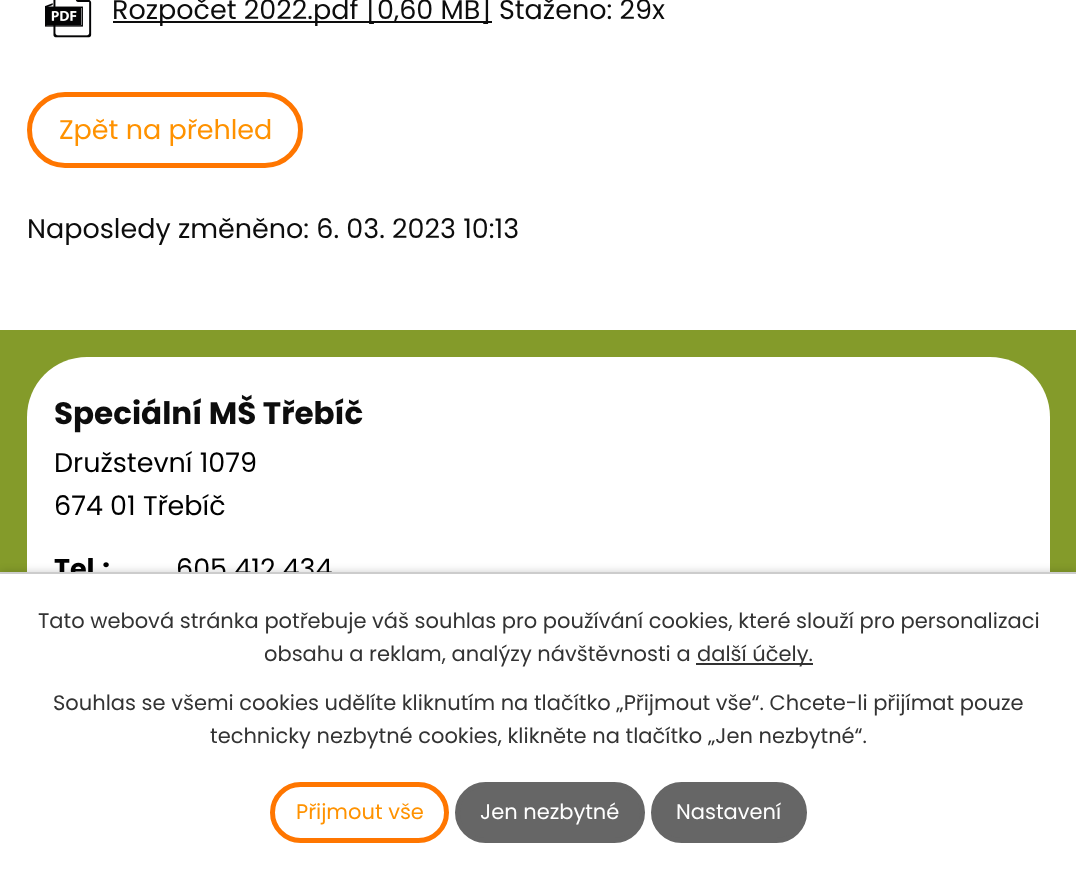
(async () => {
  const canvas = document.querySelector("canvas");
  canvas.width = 1076;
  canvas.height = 871;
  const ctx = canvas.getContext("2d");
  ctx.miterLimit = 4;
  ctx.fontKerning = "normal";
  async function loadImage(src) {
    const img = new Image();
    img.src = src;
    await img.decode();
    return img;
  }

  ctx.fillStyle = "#ffffff";
  ctx.fillRect(0, 0, 1076, 871);
  ctx.drawImage(await loadImage("img/1.png"), 45, 0, 47, 38);
  ctx.fillStyle = "#0d0d0d";
  ctx.fillRect(113, 21, 379, 2);
  ctx.beginPath();
  ctx.roundRect(29.5, 94.5, 271, 71, 35.5);
  ctx.strokeStyle = "#ff7600";
  ctx.lineWidth = 5;
  ctx.stroke();
  ctx.fillStyle = "#849b2a";
  ctx.fillRect(0, 330, 1076, 242);
  ctx.fillStyle = "#ffffff";
  ctx.beginPath();
  ctx.roundRect(27, 357, 1023, 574, 60);
  ctx.fill();
  ctx.fillStyle = "rgba(0, 0, 0, 0.2)";
  ctx.filter = "blur(4px)";
  ctx.beginPath();
  ctx.rect(0, 572, 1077, 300);
  ctx.fill();
  ctx.filter = "none";
  ctx.font = "27px Poppins";
  ctx.fillStyle = "#0d0d0d";
  ctx.fillText("Rozpočet 2022.pdf [0,60 MB] Staženo: 29x", 112, 19);
  ctx.fillStyle = "#ff9200";
  ctx.fillText("Zpět na přehled", 59, 139);
  ctx.fillStyle = "#0d0d0d";
  ctx.fillText("Naposledy změněno: 6. 03. 2023 10:13", 27, 238);
  ctx.font = "bold 31px Poppins";
  ctx.fillText("Speciální MŠ Třebíč", 54, 424);
  ctx.font = "27px Poppins";
  ctx.fillStyle = "#000000";
  ctx.fillText("Družstevní 1079", 54, 472);
  ctx.fillText("674 01 Třebíč", 54, 515);
  ctx.font = "bold 27px Poppins";
  ctx.fillText("Tel.:", 54, 578);
  ctx.font = "27px Poppins";
  ctx.fillText("605 412 434", 176, 578);
  ctx.fillStyle = "#ffffff";
  ctx.fillRect(0, 574, 1076, 297);
  ctx.fillStyle = "#cccccc";
  ctx.fillRect(0, 572, 1076, 2);
  ctx.font = "21px Poppins";
  ctx.fillStyle = "#333333";
  ctx.fillText("Tato webová stránka potřebuje váš souhlas pro používání cookies, které slouží pro personalizaci", 38, 628);
  ctx.fillText("obsahu a reklam, analýzy návštěvnosti a", 264, 661);
  ctx.fillRect(696, 663, 117, 2);
  for (const [text, x, y] of [
    ["další účely.", 697, 661],
    ["Souhlas se všemi cookies udělíte kliknutím na tlačítko „Přijmout vše“. Chcete-li přijímat pouze", 53, 710],
    ["technicky nezbytné cookies, klikněte na tlačítko „Jen nezbytné“.", 210, 743],
  ]) {
    ctx.fillText(text, x, y);
  }
  ctx.beginPath();
  ctx.roundRect(272.5, 784.5, 174, 56, 28);
  ctx.stroke();
  ctx.fillStyle = "#ff9200";
  ctx.fillText("Přijmout vše", 296, 819);
  ctx.fillStyle = "#666666";
  ctx.beginPath();
  ctx.roundRect(457.5, 784.5, 185, 56, 28);
  ctx.fill();
  ctx.strokeStyle = "#666666";
  ctx.stroke();
  ctx.fillStyle = "#ffffff";
  ctx.fillText("Jen nezbytné", 480, 819);
  ctx.fillStyle = "#666666";
  ctx.beginPath();
  ctx.roundRect(653.5, 784.5, 151, 56, 28);
  ctx.fill();
  ctx.stroke();
  ctx.fillStyle = "#ffffff";
  ctx.fillText("Nastavení", 676, 819);
})();
